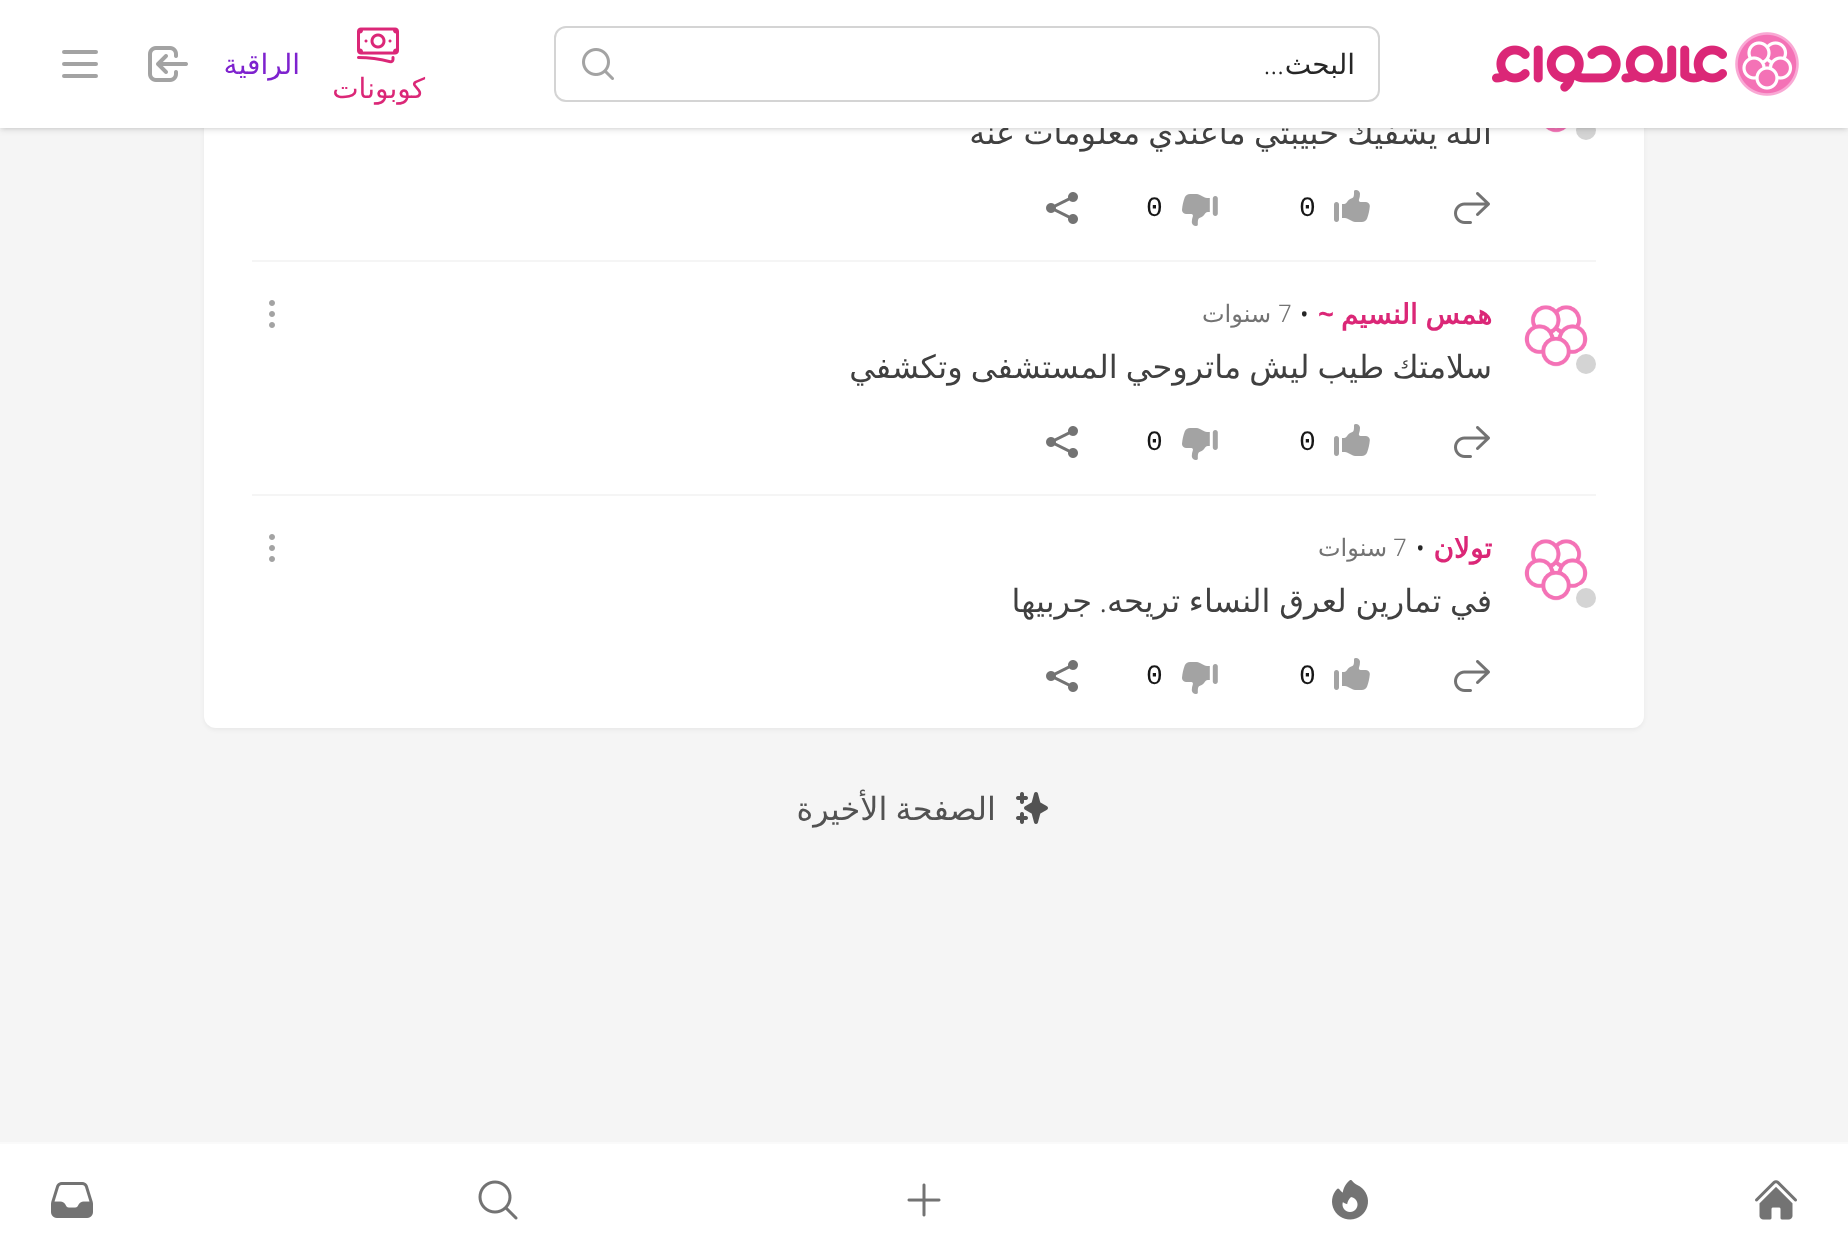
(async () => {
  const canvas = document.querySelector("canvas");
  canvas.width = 1848;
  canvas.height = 1256;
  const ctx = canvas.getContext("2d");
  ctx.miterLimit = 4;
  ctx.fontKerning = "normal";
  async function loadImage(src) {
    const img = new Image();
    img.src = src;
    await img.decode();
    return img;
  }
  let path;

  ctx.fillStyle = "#f5f5f5";
  ctx.fillRect(0, 0, 1848, 1256);
  ctx.fillStyle = "rgba(0, 0, 0, 0.05)";
  ctx.filter = "blur(2px)";
  ctx.beginPath();
  ctx.roundRect(204, 30, 1440, 700, 12);
  ctx.fill();
  ctx.filter = "none";
  ctx.fillStyle = "#ffffff";
  ctx.beginPath();
  ctx.roundRect(204, 28, 1440, 700, 12);
  ctx.fill();
  ctx.drawImage(await loadImage("img/5.png"), 1527, 128, 50, 5);
  ctx.fillStyle = "#d4d4d4";
  ctx.beginPath();
  ctx.arc(1586, 130, 10, 0, Math.PI * 2);
  ctx.fill();
  ctx.fillStyle = "rgba(0, 0, 0, 0.1)";
  ctx.filter = "blur(2px)";
  ctx.beginPath();
  ctx.rect(2, 4, 1844, 124);
  ctx.fill();
  ctx.filter = "none";
  ctx.filter = "blur(3px)";
  ctx.beginPath();
  ctx.rect(0, 2, 1848, 128);
  ctx.fill();
  ctx.filter = "none";
  ctx.drawImage(await loadImage("img/6.png"), 1454, 192, 36, 32);
  ctx.drawImage(await loadImage("img/7.png"), 1334, 190, 36, 32);
  ctx.drawImage(await loadImage("img/8.png"), 1182, 194, 36, 32);
  ctx.drawImage(await loadImage("img/9.png"), 1046, 192, 32, 32);
  ctx.fillStyle = "#f5f5f5";
  ctx.fillRect(252, 260, 1344, 2);
  ctx.drawImage(await loadImage("img/10.png"), 1524, 305, 64, 62);
  ctx.beginPath();
  ctx.arc(1586, 364, 12, 0, Math.PI * 2);
  ctx.strokeStyle = "#ffffff";
  ctx.lineWidth = 4;
  ctx.stroke();
  ctx.fillStyle = "#d4d4d4";
  ctx.beginPath();
  ctx.arc(1586, 364, 10, 0, Math.PI * 2);
  ctx.fill();
  ctx.drawImage(await loadImage("img/11.png"), 269, 300, 6, 28);
  ctx.drawImage(await loadImage("img/6.png"), 1454, 426, 36, 32);
  ctx.drawImage(await loadImage("img/7.png"), 1334, 424, 36, 32);
  ctx.drawImage(await loadImage("img/8.png"), 1182, 428, 36, 32);
  ctx.drawImage(await loadImage("img/9.png"), 1046, 426, 32, 32);
  ctx.fillStyle = "#f5f5f5";
  ctx.fillRect(252, 494, 1344, 2);
  ctx.drawImage(await loadImage("img/10.png"), 1524, 539, 64, 62);
  ctx.beginPath();
  ctx.arc(1586, 598, 12, 0, Math.PI * 2);
  ctx.stroke();
  ctx.fillStyle = "#d4d4d4";
  ctx.beginPath();
  ctx.arc(1586, 598, 10, 0, Math.PI * 2);
  ctx.fill();
  ctx.drawImage(await loadImage("img/11.png"), 269, 534, 6, 28);
  ctx.drawImage(await loadImage("img/6.png"), 1454, 660, 36, 32);
  ctx.drawImage(await loadImage("img/7.png"), 1334, 658, 36, 32);
  ctx.drawImage(await loadImage("img/8.png"), 1182, 662, 36, 32);
  ctx.drawImage(await loadImage("img/9.png"), 1046, 660, 32, 32);
  ctx.drawImage(await loadImage("img/12.png"), 1016, 792, 32, 32);
  ctx.fillStyle = "#ffffff";
  ctx.fillRect(0, 1144, 1848, 112);
  ctx.fillStyle = "#fafafa";
  ctx.fillRect(0, 1142, 1848, 2);
  ctx.drawImage(await loadImage("img/13.png"), 1755, 1180, 42, 40);
  ctx.drawImage(await loadImage("img/14.png"), 1332, 1180, 36, 40);
  ctx.drawImage(await loadImage("img/15.png"), 907, 1183, 34, 34);
  ctx.drawImage(await loadImage("img/16.png"), 478, 1180, 40, 40);
  ctx.drawImage(await loadImage("img/17.png"), 51, 1182, 42, 36);
  ctx.wordSpacing = "-2px";
  ctx.direction = "rtl";
  ctx.font = "32px DejaVu Sans";
  ctx.fillStyle = "#404040";
  ctx.fillText("الله يشفيك حبيبتي ماعندي معلومات عنه", 1492, 144);
  ctx.fillStyle = "#ffffff";
  ctx.fillRect(0, 0, 1848, 128);
  ctx.wordSpacing = "0px";
  ctx.font = "28px DejaVu Sans";
  ctx.fillStyle = "#7e22ce";
  ctx.fillText("الراقية", 300, 74);
  ctx.drawImage(await loadImage("img/3.png"), 148, 46, 40, 36);
  ctx.beginPath();
  ctx.roundRect(555, 27, 824, 74, 11);
  ctx.strokeStyle = "#d4d4d4";
  ctx.lineWidth = 2;
  ctx.stroke();
  ctx.drawImage(await loadImage("img/2.png"), 582, 48, 32, 32);
  ctx.fillStyle = "#262626";
  ctx.fillText("البحث", 1355, 74);
  ctx.font = "300 28px Noto Sans";
  ctx.fillText("…", 1284, 74);
  path = new Path2D("M64 52H96M64 64H96M64 76H96");
  ctx.strokeStyle = "#a3a3a3";
  ctx.lineWidth = 4;
  ctx.lineCap = "round";
  ctx.lineJoin = "round";
  ctx.stroke(path);
  ctx.drawImage(await loadImage("img/4.png"), 357, 27, 42, 37);
  ctx.drawImage(await loadImage("img/1.png"), 1492, 32, 307, 64);
  ctx.font = "28px DejaVu Sans";
  ctx.fillStyle = "#db2777";
  ctx.fillText("كوبونات", 425, 98);
  ctx.direction = "ltr";
  ctx.font = "28px Liberation Mono";
  ctx.fillStyle = "#171717";
  ctx.fillText("0", 1299, 216);
  ctx.fillText("0", 1146, 216);
  ctx.wordSpacing = "-1px";
  ctx.direction = "rtl";
  ctx.font = "bold 28px DejaVu Sans";
  ctx.fillStyle = "#db2777";
  ctx.fillText("همس النسيم", 1492, 324);
  ctx.wordSpacing = "0px";
  ctx.font = "bold 28px Noto Sans";
  ctx.fillText("~", 1334, 324);
  ctx.direction = "ltr";
  ctx.font = "300 28px Noto Sans";
  ctx.fillStyle = "#262626";
  ctx.fillText("•", 1299, 324);
  ctx.font = "300 24px Noto Sans";
  ctx.fillStyle = "#737373";
  ctx.fillText("7", 1278, 322);
  ctx.direction = "rtl";
  ctx.font = "24px DejaVu Sans";
  ctx.fillText("سنوات", 1271, 322);
  ctx.wordSpacing = "-2px";
  ctx.font = "32px DejaVu Sans";
  ctx.fillStyle = "#404040";
  ctx.fillText("سلامتك طيب ليش ماتروحي المستشفى وتكشفي", 1492, 378);
  ctx.wordSpacing = "0px";
  ctx.direction = "ltr";
  ctx.font = "28px Liberation Mono";
  ctx.fillStyle = "#171717";
  ctx.fillText("0", 1299, 450);
  ctx.fillText("0", 1146, 450);
  ctx.direction = "rtl";
  ctx.font = "bold 28px DejaVu Sans";
  ctx.fillStyle = "#db2777";
  ctx.fillText("تولان", 1492, 558);
  ctx.direction = "ltr";
  ctx.font = "300 28px Noto Sans";
  ctx.fillStyle = "#262626";
  ctx.fillText("•", 1415, 558);
  ctx.font = "300 24px Noto Sans";
  ctx.fillStyle = "#737373";
  ctx.fillText("7", 1393, 556);
  ctx.direction = "rtl";
  ctx.font = "24px DejaVu Sans";
  ctx.fillText("سنوات", 1387, 556);
  ctx.wordSpacing = "-1.5px";
  ctx.font = "32px DejaVu Sans";
  ctx.fillStyle = "#404040";
  ctx.fillText("في تمارين لعرق النساء تريحه", 1492, 612);
  ctx.wordSpacing = "0px";
  ctx.font = "300 32px Noto Sans";
  ctx.fillText(".", 1107, 612);
  ctx.font = "32px DejaVu Sans";
  ctx.fillText("جربيها", 1092, 612);
  ctx.direction = "ltr";
  ctx.font = "28px Liberation Mono";
  ctx.fillStyle = "#171717";
  ctx.fillText("0", 1299, 684);
  ctx.fillText("0", 1146, 684);
  ctx.wordSpacing = "-2px";
  ctx.direction = "rtl";
  ctx.font = "32px DejaVu Sans";
  ctx.fillStyle = "#525252";
  ctx.fillText("الصفحة الأخيرة", 996, 820);
})();
